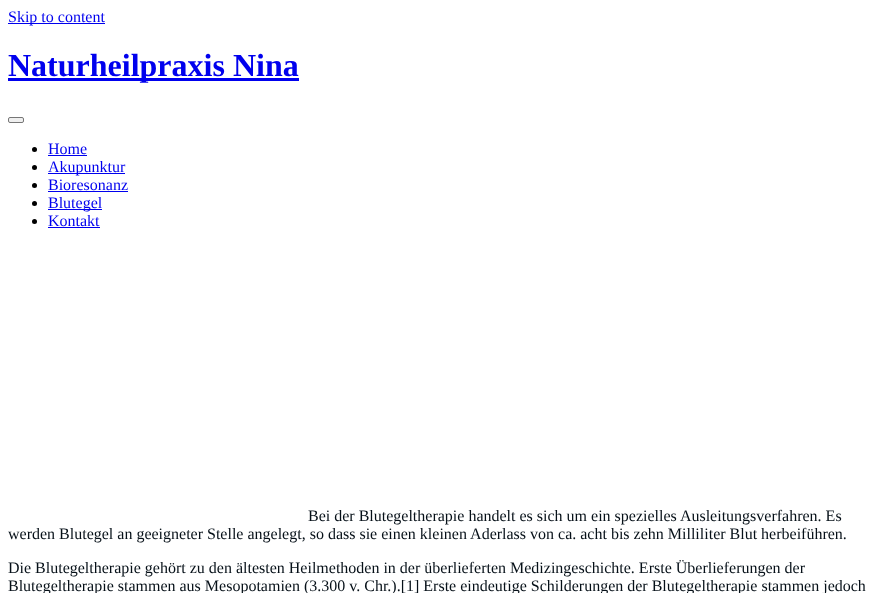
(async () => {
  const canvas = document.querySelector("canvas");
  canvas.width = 885;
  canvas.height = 593;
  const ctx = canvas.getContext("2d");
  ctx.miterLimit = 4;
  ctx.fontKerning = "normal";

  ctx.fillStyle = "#ffffff";
  ctx.fillRect(0, 0, 885, 593);
  ctx.fillStyle = "#0000ee";
  ctx.fillRect(8, 23, 97, 1);
  ctx.fillRect(8, 78, 291, 3);
  ctx.fillStyle = "#efefef";
  ctx.beginPath();
  ctx.roundRect(8.5, 117.5, 15, 5, 1.5);
  ctx.fill();
  ctx.strokeStyle = "#767676";
  ctx.stroke();
  ctx.fillStyle = "#000000";
  ctx.beginPath();
  ctx.arc(34.5, 149.5, 2.5, 0, Math.PI * 2);
  ctx.fill();
  ctx.fillStyle = "#0000ee";
  ctx.fillRect(48, 155, 39, 1);
  ctx.fillStyle = "#000000";
  ctx.beginPath();
  ctx.arc(34.5, 167.5, 2.5, 0, Math.PI * 2);
  ctx.fill();
  ctx.fillStyle = "#0000ee";
  ctx.fillRect(48, 173, 77, 1);
  ctx.fillStyle = "#000000";
  ctx.beginPath();
  ctx.arc(34.5, 185.5, 2.5, 0, Math.PI * 2);
  ctx.fill();
  ctx.fillStyle = "#0000ee";
  ctx.fillRect(48, 191, 80, 1);
  ctx.fillStyle = "#000000";
  ctx.beginPath();
  ctx.arc(34.5, 203.5, 2.5, 0, Math.PI * 2);
  ctx.fill();
  ctx.fillStyle = "#0000ee";
  ctx.fillRect(48, 209, 54, 1);
  ctx.fillStyle = "#000000";
  ctx.beginPath();
  ctx.arc(34.5, 221.5, 2.5, 0, Math.PI * 2);
  ctx.fill();
  ctx.fillStyle = "#0000ee";
  ctx.fillRect(48, 227, 52, 1);
  ctx.font = "16px Liberation Serif";
  ctx.fillText("Skip to content", 8, 22);
  ctx.font = "bold 32px Liberation Serif";
  ctx.fillText("Naturheilpraxis Nina", 8, 76);
  ctx.font = "16px Liberation Serif";
  for (const [text, x, y] of [
    ["Home", 48, 154],
    ["Akupunktur", 48, 172],
    ["Bioresonanz", 48, 190],
    ["Blutegel", 48, 208],
    ["Kontakt", 48, 226],
  ]) {
    ctx.fillText(text, x, y);
  }
  ctx.fillStyle = "#061018";
  for (const [text, x, y] of [
    ["Bei der Blutegeltherapie handelt es sich um ein spezielles Ausleitungsverfahren. Es", 308, 521],
    ["werden Blutegel an geeigneter Stelle angelegt, so dass sie einen kleinen Aderlass von ca. acht bis zehn Milliliter Blut herbeiführen.", 8, 539],
    ["Die Blutegeltherapie gehört zu den ältesten Heilmethoden in der überlieferten Medizingeschichte. Erste Überlieferungen der", 8, 573],
    ["Blutegeltherapie stammen aus Mesopotamien (3.300 v. Chr.).[1] Erste eindeutige Schilderungen der Blutegeltherapie stammen jedoch", 8, 591],
  ]) {
    ctx.fillText(text, x, y);
  }
})();
